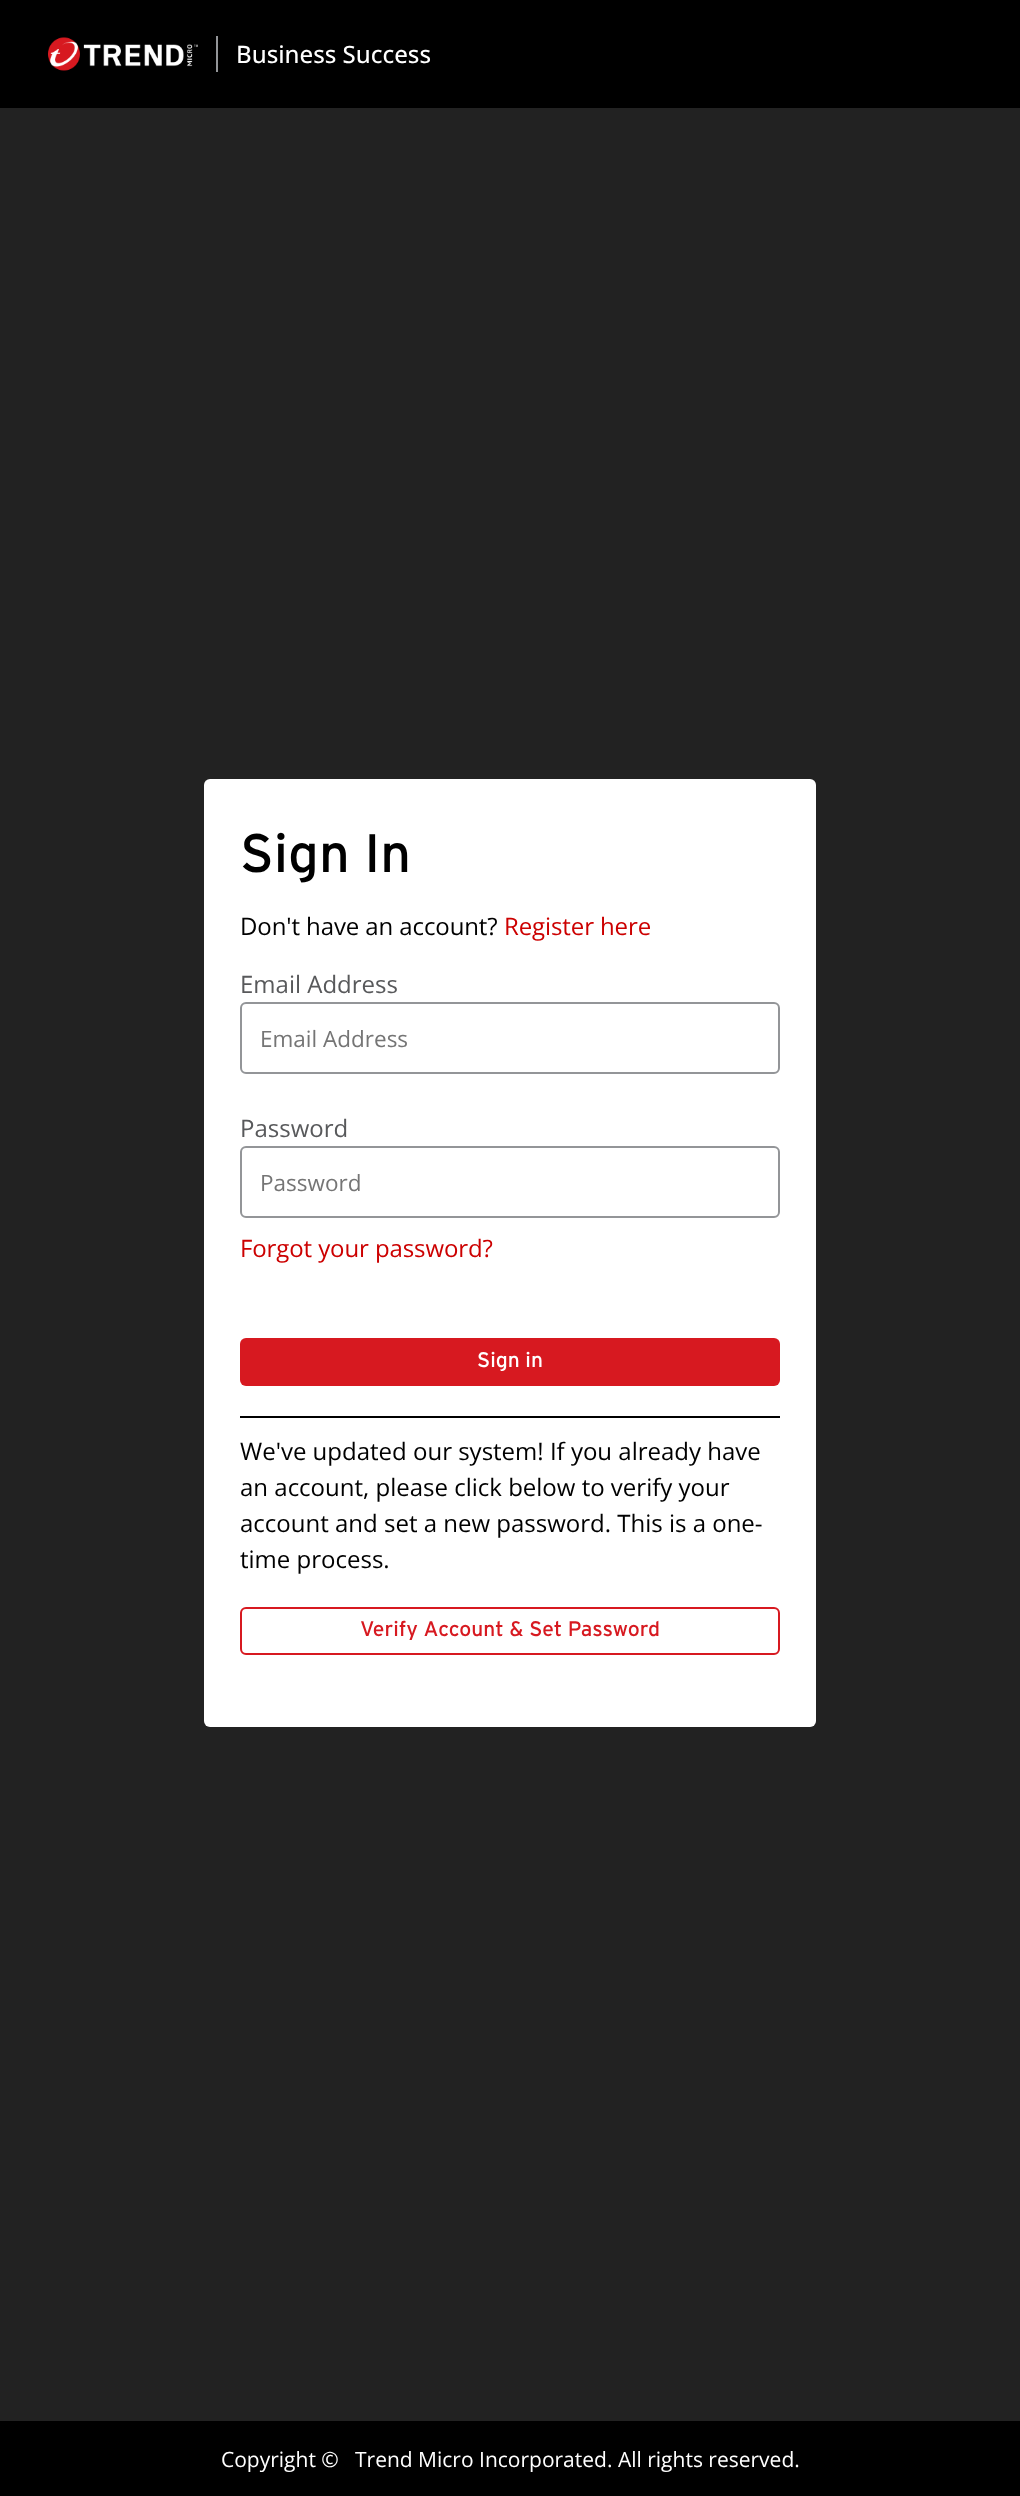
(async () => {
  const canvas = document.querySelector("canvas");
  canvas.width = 1020;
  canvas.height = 2496;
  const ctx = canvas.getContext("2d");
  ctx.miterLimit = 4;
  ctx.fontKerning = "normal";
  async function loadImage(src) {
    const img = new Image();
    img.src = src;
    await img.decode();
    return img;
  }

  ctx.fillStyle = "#222222";
  ctx.fillRect(0, 0, 1020, 2496);
  ctx.fillStyle = "#000000";
  ctx.fillRect(0, 0, 1020, 108);
  ctx.drawImage(await loadImage("img/1.png"), 48, 37, 150, 34);
  ctx.fillStyle = "#939598";
  ctx.fillRect(216, 36, 2, 36);
  ctx.fillStyle = "#ffffff";
  ctx.beginPath();
  ctx.roundRect(204, 779, 612, 948, 6);
  ctx.fill();
  ctx.beginPath();
  ctx.roundRect(241, 1003, 538, 70, 5);
  ctx.strokeStyle = "#939598";
  ctx.lineWidth = 2;
  ctx.stroke();
  ctx.beginPath();
  ctx.roundRect(241, 1147, 538, 70, 5);
  ctx.stroke();
  ctx.fillStyle = "#d71920";
  ctx.beginPath();
  ctx.roundRect(240, 1338, 540, 48, 6);
  ctx.fill();
  ctx.fillStyle = "#000000";
  ctx.fillRect(240, 1416, 540, 2);
  ctx.beginPath();
  ctx.roundRect(241, 1608, 538, 46, 5);
  ctx.strokeStyle = "#d71920";
  ctx.stroke();
  ctx.fillRect(0, 2421, 1020, 75);
  ctx.font = "500 24px Open Sans";
  ctx.fillStyle = "#ffffff";
  ctx.fillText("Business Success", 236, 63);
  ctx.font = "54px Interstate";
  ctx.fillStyle = "#000000";
  ctx.fillText("Sign In", 240, 872);
  ctx.letterSpacing = "-0.1px";
  ctx.font = "24px Open Sans";
  ctx.fillText("Don't have an account?", 240, 935);
  ctx.fillStyle = "#cc0000";
  ctx.fillText("Register here", 504, 935);
  ctx.letterSpacing = "0px";
  ctx.fillStyle = "#58595b";
  ctx.fillText("Email Address", 240, 993);
  ctx.font = "22.5px Open Sans";
  ctx.fillStyle = "#757575";
  ctx.fillText("Email Address", 260, 1047);
  ctx.font = "24px Open Sans";
  ctx.fillStyle = "#58595b";
  ctx.fillText("Password", 240, 1137);
  ctx.font = "22.5px Open Sans";
  ctx.fillStyle = "#757575";
  ctx.fillText("Password", 260, 1191);
  ctx.letterSpacing = "-0.1px";
  ctx.font = "24px Open Sans";
  ctx.fillStyle = "#cc0000";
  ctx.fillText("Forgot your password?", 240, 1257);
  ctx.letterSpacing = "0px";
  ctx.font = "21px Interstate";
  ctx.fillStyle = "#ffffff";
  ctx.fillText("Sign in", 477, 1367);
  ctx.font = "24px Open Sans";
  ctx.fillStyle = "#000000";
  for (const [text, x, y] of [
    ["We've updated our system! If you already have", 240, 1460],
    ["an account, please click below to verify your", 240, 1496],
    ["account and set a new password. This is a one-", 240, 1532],
    ["time process.", 240, 1568],
  ]) {
    ctx.fillText(text, x, y);
  }
  ctx.font = "21px Interstate";
  ctx.fillStyle = "#d71920";
  ctx.fillText("Verify Account & Set Password", 360, 1636);
  ctx.font = "21px Open Sans";
  ctx.fillStyle = "#ffffff";
  ctx.fillText("Copyright ©", 221, 2467);
  ctx.fillText("Trend Micro Incorporated. All rights reserved.", 355, 2467);
})();
